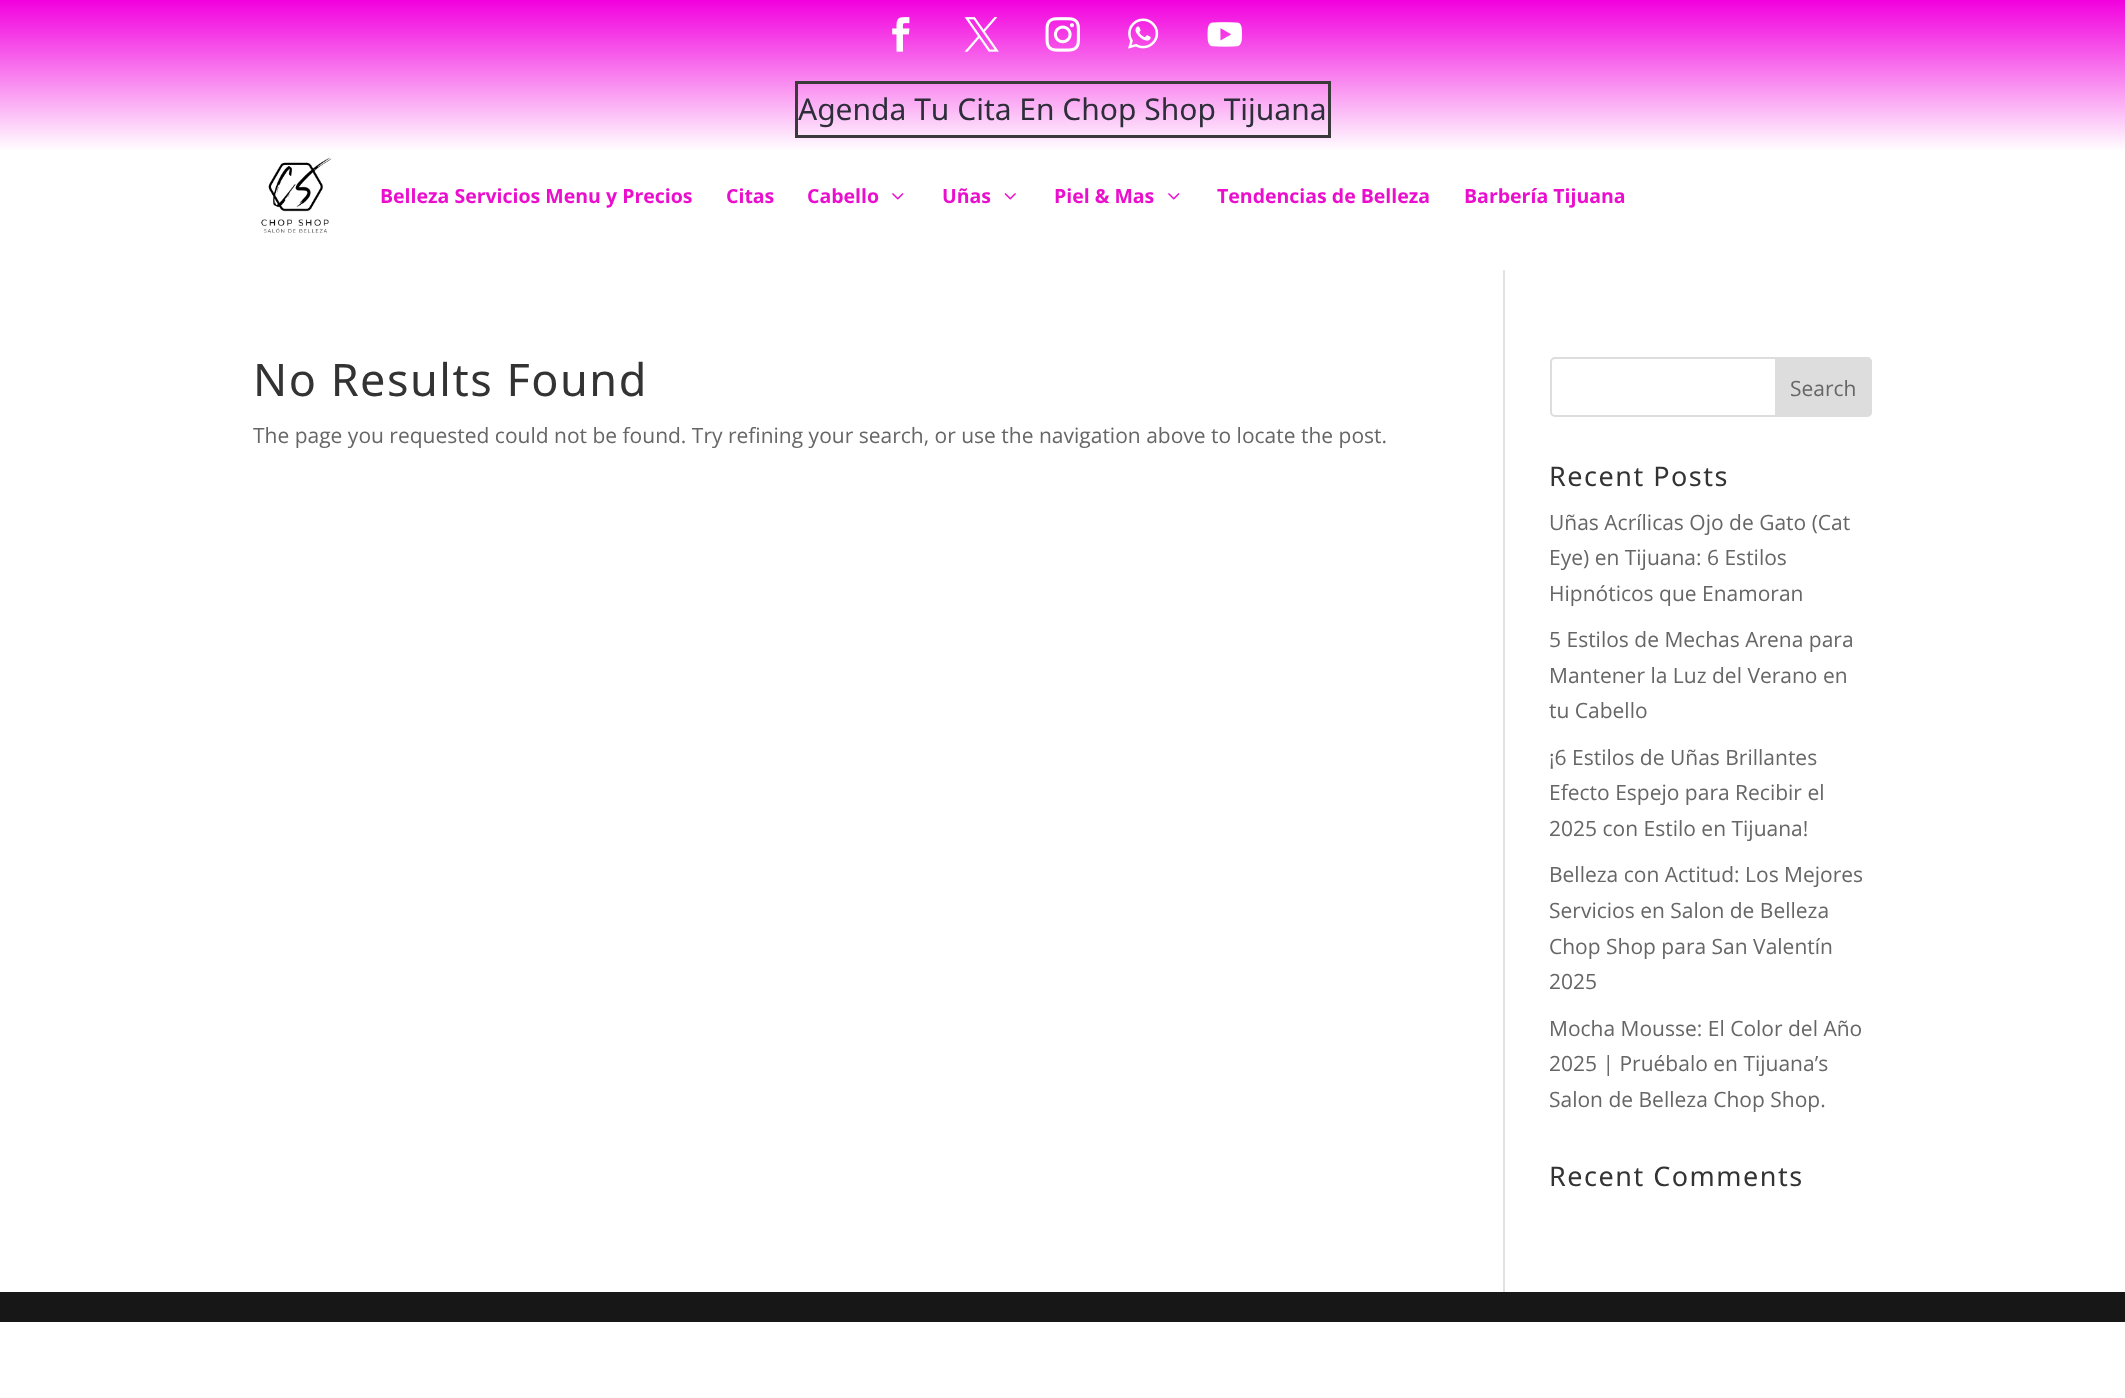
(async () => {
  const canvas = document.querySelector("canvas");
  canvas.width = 2125;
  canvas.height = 1398;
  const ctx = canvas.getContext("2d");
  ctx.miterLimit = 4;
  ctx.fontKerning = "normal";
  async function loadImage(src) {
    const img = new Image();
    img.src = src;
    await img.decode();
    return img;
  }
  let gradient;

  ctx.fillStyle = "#ffffff";
  ctx.fillRect(0, 0, 2125, 1398);
  gradient = ctx.createLinearGradient(1063, 0, 1063, 270);
  gradient.addColorStop(0, "#f200de");
  gradient.addColorStop(0.56, "#ffffff");
  ctx.fillStyle = gradient;
  ctx.fillRect(0, 0, 2125, 150);
  ctx.drawImage(await loadImage("img/1.png"), 892, 17, 18, 35);
  ctx.drawImage(await loadImage("img/2.png"), 964, 17, 35, 35);
  ctx.drawImage(await loadImage("img/3.png"), 1045, 17, 35, 35);
  ctx.drawImage(await loadImage("img/4.png"), 1128, 18, 31, 31);
  ctx.drawImage(await loadImage("img/5.png"), 1207, 22, 35, 25);
  ctx.strokeStyle = "#3a3a3a";
  ctx.lineWidth = 3;
  ctx.strokeRect(796.5, 82.5, 533, 54);
  ctx.drawImage(await loadImage("img/6.png"), 261, 157, 71, 76);
  ctx.drawImage(await loadImage("img/7.png"), 892, 193, 12, 7);
  ctx.drawImage(await loadImage("img/8.png"), 1004, 193, 12, 7);
  ctx.drawImage(await loadImage("img/7.png"), 1168, 193, 12, 7);
  ctx.fillStyle = "#e2e2e2";
  ctx.fillRect(1503, 270, 2, 1022);
  ctx.beginPath();
  ctx.roundRect(1551, 358, 320, 58, 4);
  ctx.strokeStyle = "#dddddd";
  ctx.lineWidth = 2;
  ctx.stroke();
  ctx.fillStyle = "#dddddd";
  ctx.beginPath();
  ctx.roundRect(1776, 358, 95, 58, [0, 4, 4, 0]);
  ctx.fill();
  ctx.stroke();
  ctx.fillStyle = "#171717";
  ctx.fillRect(0, 1292, 2125, 30);
  ctx.font = "30px Noto Sans Deseret";
  ctx.fillStyle = "#2d2e39";
  ctx.fillText("Agenda Tu Cita En Chop Shop Tijuana", 798, 120);
  ctx.font = "bold 19.5px Open Sans";
  ctx.fillStyle = "#ea0ecd";
  for (const [text, x, y] of [
    ["Belleza Servicios Menu y Precios", 380, 203],
    ["Citas", 726, 203],
    ["Cabello", 807, 203],
    ["Uñas", 942, 203],
    ["Piel & Mas", 1054, 203],
    ["Tendencias de Belleza", 1217, 203],
    ["Barbería Tijuana", 1464, 203],
  ]) {
    ctx.fillText(text, x, y);
  }
  ctx.letterSpacing = "1.5px";
  ctx.font = "45px Noto Sans Deseret";
  ctx.fillStyle = "#333333";
  ctx.fillText("No Results Found", 253, 396);
  ctx.letterSpacing = "0px";
  ctx.font = "21px Open Sans";
  ctx.fillStyle = "#666666";
  ctx.fillText("The page you requested could not be found. Try refining your search, or use the navigation above to locate the post.", 253, 443);
  ctx.fillText("Search", 1790, 396);
  ctx.letterSpacing = "1.5px";
  ctx.font = "27px Noto Sans Deseret";
  ctx.fillStyle = "#333333";
  ctx.fillText("Recent Posts", 1549, 486);
  ctx.letterSpacing = "0px";
  ctx.font = "21px Open Sans";
  ctx.fillStyle = "#666666";
  for (const [text, x, y] of [
    ["Uñas Acrílicas Ojo de Gato (Cat", 1549, 530],
    ["Eye) en Tijuana: 6 Estilos", 1549, 565],
    ["Hipnóticos que Enamoran", 1549, 601],
    ["5 Estilos de Mechas Arena para", 1549, 647],
    ["Mantener la Luz del Verano en", 1549, 683],
    ["tu Cabello", 1549, 718],
    ["¡6 Estilos de Uñas Brillantes", 1549, 765],
    ["Efecto Espejo para Recibir el", 1549, 800],
    ["2025 con Estilo en Tijuana!", 1549, 836],
    ["Belleza con Actitud: Los Mejores", 1549, 882],
    ["Servicios en Salon de Belleza", 1549, 918],
    ["Chop Shop para San Valentín", 1549, 954],
    ["2025", 1549, 989],
    ["Mocha Mousse: El Color del Año", 1549, 1036],
    ["2025 | Pruébalo en Tijuana’s", 1549, 1071],
    ["Salon de Belleza Chop Shop.", 1549, 1107],
  ]) {
    ctx.fillText(text, x, y);
  }
  ctx.letterSpacing = "1.5px";
  ctx.font = "27px Noto Sans Deseret";
  ctx.fillStyle = "#333333";
  ctx.fillText("Recent Comments", 1549, 1186);
})();
